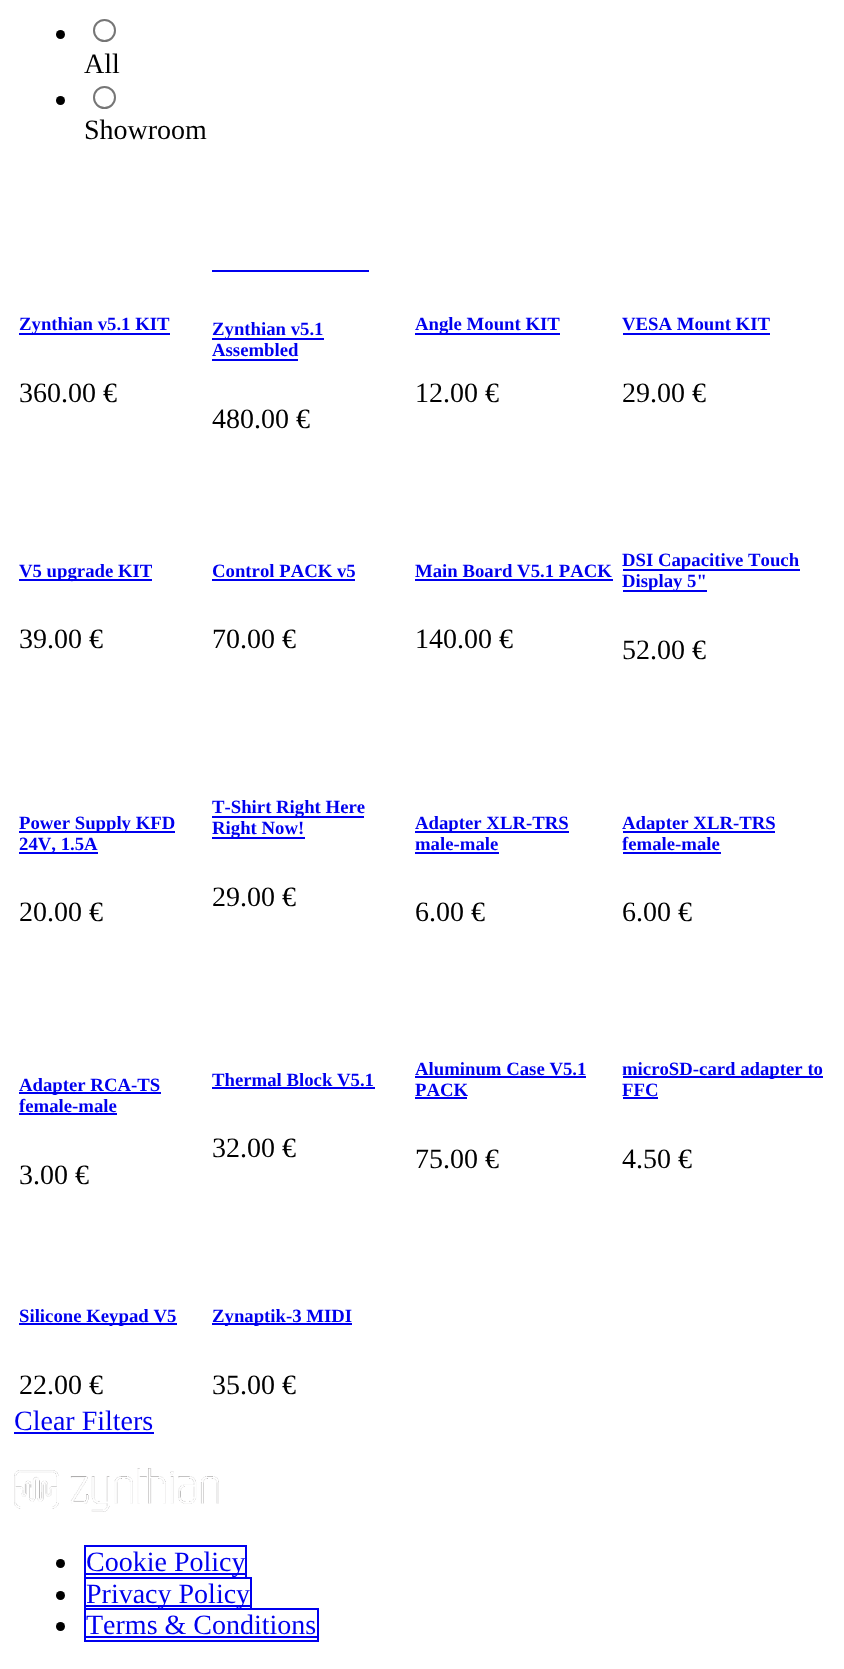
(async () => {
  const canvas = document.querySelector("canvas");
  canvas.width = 844;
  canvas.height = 1669;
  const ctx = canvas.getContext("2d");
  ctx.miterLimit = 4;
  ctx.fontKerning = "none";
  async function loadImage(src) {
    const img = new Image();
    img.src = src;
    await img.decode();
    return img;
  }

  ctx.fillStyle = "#ffffff";
  ctx.fillRect(0, 0, 844, 1669);
  ctx.fillStyle = "#000000";
  ctx.beginPath();
  ctx.arc(60.5, 34.5, 4.5, 0, Math.PI * 2);
  ctx.fill();
  ctx.beginPath();
  ctx.arc(104.5, 30.5, 10.5, 0, Math.PI * 2);
  ctx.strokeStyle = "#767676";
  ctx.lineWidth = 2;
  ctx.stroke();
  ctx.beginPath();
  ctx.arc(60.5, 100.5, 4.5, 0, Math.PI * 2);
  ctx.fill();
  ctx.beginPath();
  ctx.arc(104.5, 97.5, 10.5, 0, Math.PI * 2);
  ctx.stroke();
  for (const [x, y, w, h, color] of [
    [19, 333, 151, 2, "#0000ee"],
    [212, 270, 157, 2, "#0000ee"],
    [212, 338, 112, 2, "#0000ee"],
    [212, 359, 86, 2, "#0000ee"],
    [415, 333, 145, 2, "#0000ee"],
    [623, 333, 147, 2, "#0000ee"],
    [19, 579, 133, 2, "#0000ee"],
    [212, 579, 143, 2, "#0000ee"],
    [415, 579, 198, 2, "#0000ee"],
    [623, 569, 177, 2, "#0000ee"],
    [623, 590, 84, 2, "#0000ee"],
    [19, 831, 156, 2, "#0000ee"],
    [19, 852, 79, 2, "#0000ee"],
    [212, 816, 152, 2, "#0000ee"],
    [212, 837, 93, 2, "#0000ee"],
    [415, 831, 154, 2, "#0000ee"],
    [415, 852, 84, 2, "#0000ee"],
    [623, 831, 152, 2, "#0000ee"],
    [623, 852, 98, 2, "#0000ee"],
    [19, 1092, 142, 2, "#0000ee"],
    [19, 1113, 98, 2, "#0000ee"],
    [212, 1087, 163, 2, "#0000ee"],
    [415, 1076, 171, 2, "#0000ee"],
    [415, 1097, 52, 2, "#0000ee"],
    [623, 1076, 200, 2, "#0000ee"],
    [623, 1097, 35, 2, "#0000ee"],
    [19, 1323, 158, 2, "#0000ee"],
    [212, 1323, 140, 2, "#0000ee"],
    [14, 1432, 140, 2, "#0000ee"],
  ]) {
    ctx.fillStyle = color;
    ctx.fillRect(x, y, w, h);
  }
  ctx.drawImage(await loadImage("img/1.png"), 14, 1468, 205, 44);
  ctx.fillStyle = "#000000";
  ctx.beginPath();
  ctx.arc(60.5, 1563.5, 4.5, 0, Math.PI * 2);
  ctx.fill();
  ctx.strokeStyle = "#0000ee";
  ctx.strokeRect(85, 1546, 161, 32);
  ctx.fillStyle = "#0000ee";
  ctx.fillRect(86, 1573, 159, 2);
  ctx.fillStyle = "#000000";
  ctx.beginPath();
  ctx.arc(60.5, 1595.5, 4.5, 0, Math.PI * 2);
  ctx.fill();
  ctx.strokeRect(85, 1578, 166, 31);
  ctx.fillStyle = "#0000ee";
  ctx.fillRect(86, 1605, 164, 2);
  ctx.fillStyle = "#000000";
  ctx.beginPath();
  ctx.arc(60.5, 1626.5, 4.5, 0, Math.PI * 2);
  ctx.fill();
  ctx.strokeRect(85, 1609, 233, 32);
  ctx.fillStyle = "#0000ee";
  ctx.fillRect(86, 1636, 231, 2);
  ctx.font = "28px Liberation Serif";
  ctx.fillStyle = "#000000";
  ctx.fillText("All", 84, 73);
  ctx.fillText("Showroom", 84, 139);
  ctx.font = "bold 18.75px Liberation Serif";
  ctx.fillStyle = "#0000ee";
  ctx.fillText("Zynthian v5.1 KIT", 19, 330);
  ctx.font = "28px Liberation Serif";
  ctx.fillStyle = "#000000";
  ctx.fillText("360.00 €", 19, 402);
  ctx.font = "bold 18.75px Liberation Serif";
  ctx.fillStyle = "#0000ee";
  ctx.fillText("Zynthian v5.1", 212, 335);
  ctx.fillText("Assembled", 212, 356);
  ctx.font = "28px Liberation Serif";
  ctx.fillStyle = "#000000";
  ctx.fillText("480.00 €", 212, 428);
  ctx.font = "bold 18.75px Liberation Serif";
  ctx.fillStyle = "#0000ee";
  ctx.fillText("Angle Mount KIT", 415, 330);
  ctx.font = "28px Liberation Serif";
  ctx.fillStyle = "#000000";
  ctx.fillText("12.00 €", 415, 402);
  ctx.font = "bold 18.75px Liberation Serif";
  ctx.fillStyle = "#0000ee";
  ctx.fillText("VESA Mount KIT", 622, 330);
  ctx.font = "28px Liberation Serif";
  ctx.fillStyle = "#000000";
  ctx.fillText("29.00 €", 622, 402);
  ctx.font = "bold 18.75px Liberation Serif";
  ctx.fillStyle = "#0000ee";
  ctx.fillText("V5 upgrade KIT", 19, 577);
  ctx.font = "28px Liberation Serif";
  ctx.fillStyle = "#000000";
  ctx.fillText("39.00 €", 19, 648);
  ctx.font = "bold 18.75px Liberation Serif";
  ctx.fillStyle = "#0000ee";
  ctx.fillText("Control PACK v5", 212, 577);
  ctx.font = "28px Liberation Serif";
  ctx.fillStyle = "#000000";
  ctx.fillText("70.00 €", 212, 648);
  ctx.font = "bold 18.75px Liberation Serif";
  ctx.fillStyle = "#0000ee";
  ctx.fillText("Main Board V5.1 PACK", 415, 577);
  ctx.font = "28px Liberation Serif";
  ctx.fillStyle = "#000000";
  ctx.fillText("140.00 €", 415, 648);
  ctx.font = "bold 18.75px Liberation Serif";
  ctx.fillStyle = "#0000ee";
  ctx.fillText("DSI Capacitive Touch", 622, 566);
  ctx.fillText("Display 5\"", 622, 587);
  ctx.font = "28px Liberation Serif";
  ctx.fillStyle = "#000000";
  ctx.fillText("52.00 €", 622, 659);
  ctx.font = "bold 18.75px Liberation Serif";
  ctx.fillStyle = "#0000ee";
  ctx.fillText("Power Supply KFD", 19, 829);
  ctx.fillText("24V, 1.5A", 19, 850);
  ctx.font = "28px Liberation Serif";
  ctx.fillStyle = "#000000";
  ctx.fillText("20.00 €", 19, 921);
  ctx.font = "bold 18.75px Liberation Serif";
  ctx.fillStyle = "#0000ee";
  ctx.fillText("T-Shirt Right Here", 212, 813);
  ctx.fillText("Right Now!", 212, 834);
  ctx.font = "28px Liberation Serif";
  ctx.fillStyle = "#000000";
  ctx.fillText("29.00 €", 212, 906);
  ctx.font = "bold 18.75px Liberation Serif";
  ctx.fillStyle = "#0000ee";
  ctx.fillText("Adapter XLR-TRS", 415, 829);
  ctx.fillText("male-male", 415, 850);
  ctx.font = "28px Liberation Serif";
  ctx.fillStyle = "#000000";
  ctx.fillText("6.00 €", 415, 921);
  ctx.font = "bold 18.75px Liberation Serif";
  ctx.fillStyle = "#0000ee";
  ctx.fillText("Adapter XLR-TRS", 622, 829);
  ctx.fillText("female-male", 622, 850);
  ctx.font = "28px Liberation Serif";
  ctx.fillStyle = "#000000";
  ctx.fillText("6.00 €", 622, 921);
  ctx.font = "bold 18.75px Liberation Serif";
  ctx.fillStyle = "#0000ee";
  ctx.fillText("Adapter RCA-TS", 19, 1091);
  ctx.fillText("female-male", 19, 1112);
  ctx.font = "28px Liberation Serif";
  ctx.fillStyle = "#000000";
  ctx.fillText("3.00 €", 19, 1184);
  ctx.font = "bold 18.75px Liberation Serif";
  ctx.fillStyle = "#0000ee";
  ctx.fillText("Thermal Block V5.1", 212, 1086);
  ctx.font = "28px Liberation Serif";
  ctx.fillStyle = "#000000";
  ctx.fillText("32.00 €", 212, 1157);
  ctx.font = "bold 18.75px Liberation Serif";
  ctx.fillStyle = "#0000ee";
  ctx.fillText("Aluminum Case V5.1", 415, 1075);
  ctx.fillText("PACK", 415, 1096);
  ctx.font = "28px Liberation Serif";
  ctx.fillStyle = "#000000";
  ctx.fillText("75.00 €", 415, 1168);
  ctx.font = "bold 18.75px Liberation Serif";
  ctx.fillStyle = "#0000ee";
  ctx.fillText("microSD-card adapter to", 622, 1075);
  ctx.fillText("FFC", 622, 1096);
  ctx.font = "28px Liberation Serif";
  ctx.fillStyle = "#000000";
  ctx.fillText("4.50 €", 622, 1168);
  ctx.font = "bold 18.75px Liberation Serif";
  ctx.fillStyle = "#0000ee";
  ctx.fillText("Silicone Keypad V5", 19, 1322);
  ctx.font = "28px Liberation Serif";
  ctx.fillStyle = "#000000";
  ctx.fillText("22.00 €", 19, 1394);
  ctx.font = "bold 18.75px Liberation Serif";
  ctx.fillStyle = "#0000ee";
  ctx.fillText("Zynaptik-3 MIDI", 212, 1322);
  ctx.font = "28px Liberation Serif";
  ctx.fillStyle = "#000000";
  ctx.fillText("35.00 €", 212, 1394);
  ctx.fillStyle = "#0000ee";
  for (const [text, x, y] of [
    ["Clear Filters", 14, 1430],
    ["Cookie Policy", 86, 1571],
    ["Privacy Policy", 86, 1603],
    ["Terms & Conditions", 86, 1634],
  ]) {
    ctx.fillText(text, x, y);
  }
})();
